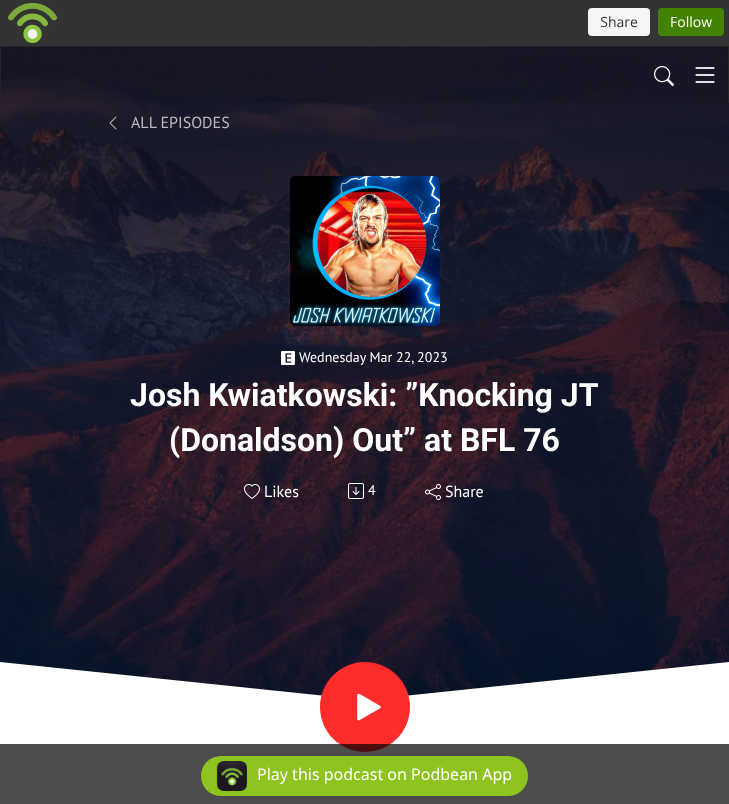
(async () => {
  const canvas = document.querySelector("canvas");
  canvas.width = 729;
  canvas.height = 804;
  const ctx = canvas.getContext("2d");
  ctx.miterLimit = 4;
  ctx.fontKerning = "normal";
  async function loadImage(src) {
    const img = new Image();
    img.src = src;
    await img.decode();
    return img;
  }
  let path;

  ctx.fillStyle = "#ffffff";
  ctx.fillRect(0, 0, 729, 804);
  ctx.fillStyle = "#333333";
  ctx.fillRect(0, 0, 729, 46);
  ctx.drawImage(await loadImage("img/1.png"), 8, 3, 716, 40);
  ctx.drawImage(await loadImage("img/4.png"), 0, 47, 729, 649);
  for (const [x, y, w, h, color] of [
    [1, 47, 727, 56, "rgba(0, 0, 0, 0.09)"],
    [0, 46, 729, 1, "#212529"],
    [728, 46, 1, 57, "#212529"],
    [0, 46, 1, 57, "#212529"],
  ]) {
    ctx.fillStyle = color;
    ctx.fillRect(x, y, w, h);
  }
  ctx.drawImage(await loadImage("img/2.png"), 654, 66, 20, 20);
  ctx.drawImage(await loadImage("img/3.png"), 695, 67, 20, 16);
  ctx.drawImage(await loadImage("img/5.png"), 109, 116, 8, 14);
  ctx.drawImage(await loadImage("img/6.png"), 290, 176, 150, 150);
  ctx.drawImage(await loadImage("img/7.png"), 281, 351, 14, 14);
  ctx.drawImage(await loadImage("img/8.png"), 244, 484, 16, 15);
  ctx.drawImage(await loadImage("img/9.png"), 348, 483, 16, 16);
  ctx.drawImage(await loadImage("img/10.png"), 425, 484, 16, 16);
  ctx.fillStyle = "#ffffff";
  path = new Path2D("M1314 772H-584V601L365 700L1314 601Z");
  ctx.fill(path);
  ctx.fillStyle = "#ff2c2c";
  ctx.beginPath();
  ctx.arc(365, 707, 45, 0, Math.PI * 2);
  ctx.fill();
  ctx.drawImage(await loadImage("img/11.png"), 357, 693, 24, 28);
  ctx.fillStyle = "rgba(0, 0, 0, 0.7)";
  ctx.fillRect(0, 744, 729, 60);
  ctx.fillStyle = "#8fc31f";
  ctx.beginPath();
  ctx.roundRect(201, 756, 327, 40, 20);
  ctx.fill();
  ctx.drawImage(await loadImage("img/12.png"), 216, 761, 31, 30);
  ctx.font = "16px PT Sans";
  ctx.fillStyle = "#bbbabf";
  ctx.fillText("ALL EPISODES", 131, 128);
  ctx.font = "14px PT Sans";
  ctx.fillStyle = "#ffffff";
  ctx.fillText("Wednesday Mar 22, 2023", 299, 362);
  ctx.font = "bold 32px Roboto";
  ctx.fillText("Josh Kwiatkowski: ”Knocking JT", 130, 406);
  ctx.fillText("(Donaldson) Out” at BFL 76", 169, 451);
  ctx.font = "16px PT Sans";
  ctx.fillText("Likes", 264, 497);
  ctx.font = "14px PT Sans";
  ctx.fillText("4", 368, 495);
  ctx.font = "16px PT Sans";
  ctx.fillText("Share", 445, 497);
  ctx.font = "16px Noto Sans";
  ctx.fillText("Play this podcast on Podbean App", 257, 780);
})();
